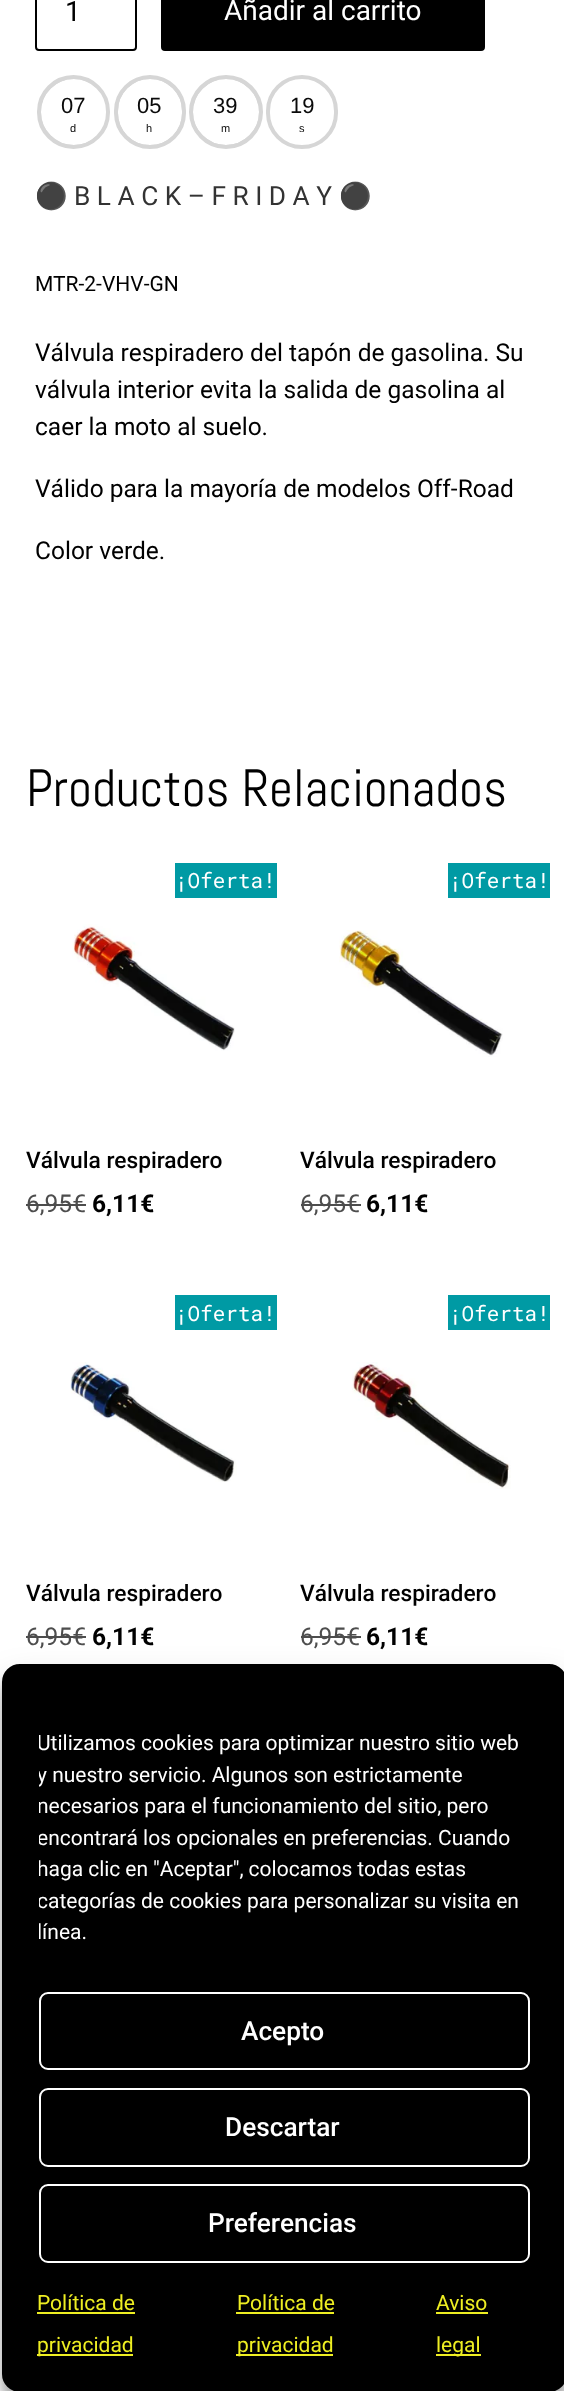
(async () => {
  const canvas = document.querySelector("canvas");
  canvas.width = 564;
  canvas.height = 2391;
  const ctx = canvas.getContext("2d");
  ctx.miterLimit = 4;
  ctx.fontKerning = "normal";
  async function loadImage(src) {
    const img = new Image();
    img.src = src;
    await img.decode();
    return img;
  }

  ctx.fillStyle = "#ffffff";
  ctx.fillRect(0, 0, 564, 2391);
  ctx.beginPath();
  ctx.roundRect(36, -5, 100, 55, 3);
  ctx.strokeStyle = "#000000";
  ctx.lineWidth = 2;
  ctx.stroke();
  ctx.fillStyle = "#000000";
  ctx.beginPath();
  ctx.roundRect(162, -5, 322, 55, 3);
  ctx.fill();
  ctx.stroke();
  ctx.beginPath();
  ctx.arc(74, 112, 34, 0, Math.PI * 2);
  ctx.strokeStyle = "#d6d6d6";
  ctx.stroke();
  ctx.beginPath();
  ctx.roundRect(39, 77, 69, 70, 34.5);
  ctx.lineWidth = 4;
  ctx.stroke();
  ctx.beginPath();
  ctx.roundRect(117, 78, 66, 68, 33);
  ctx.lineWidth = 2;
  ctx.stroke();
  ctx.beginPath();
  ctx.roundRect(116, 77, 68, 70, 34);
  ctx.lineWidth = 4;
  ctx.stroke();
  ctx.beginPath();
  ctx.arc(226, 112, 34, 0, Math.PI * 2);
  ctx.lineWidth = 2;
  ctx.stroke();
  ctx.beginPath();
  ctx.roundRect(268, 77, 68, 70, 34);
  ctx.lineWidth = 4;
  ctx.stroke();
  ctx.fillStyle = "#009aa4";
  ctx.fillRect(175, 863, 102, 35);
  ctx.drawImage(await loadImage("img/1.png"), 72, 924, 163, 127);
  ctx.fillStyle = "#4d4d4d";
  ctx.fillRect(26, 1204, 60, 2);
  ctx.fillStyle = "#009aa4";
  ctx.fillRect(448, 863, 102, 35);
  ctx.drawImage(await loadImage("img/2.png"), 339, 930, 164, 127);
  ctx.fillStyle = "#4d4d4d";
  ctx.fillRect(301, 1204, 60, 2);
  ctx.fillStyle = "#009aa4";
  ctx.fillRect(175, 1295, 102, 35);
  ctx.drawImage(await loadImage("img/3.png"), 70, 1362, 167, 120);
  ctx.fillStyle = "#4d4d4d";
  ctx.fillRect(26, 1636, 60, 2);
  ctx.fillStyle = "#009aa4";
  ctx.fillRect(448, 1295, 102, 35);
  ctx.drawImage(await loadImage("img/4.png"), 352, 1362, 159, 127);
  ctx.fillStyle = "#4d4d4d";
  ctx.fillRect(301, 1636, 60, 2);
  ctx.fillStyle = "rgba(0, 0, 0, 0.23)";
  ctx.filter = "blur(5px)";
  ctx.beginPath();
  ctx.roundRect(2, 1675, 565, 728, 18);
  ctx.fill();
  ctx.filter = "none";
  ctx.fillStyle = "rgba(0, 0, 0, 0.19)";
  ctx.filter = "blur(17.5px)";
  ctx.beginPath();
  ctx.roundRect(2, 1682, 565, 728, 18);
  ctx.fill();
  ctx.filter = "none";
  ctx.fillStyle = "#000000";
  ctx.beginPath();
  ctx.roundRect(3, 1665, 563, 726, 17);
  ctx.fill();
  ctx.strokeStyle = "#000000";
  ctx.lineWidth = 2;
  ctx.stroke();
  ctx.beginPath();
  ctx.roundRect(40, 1993, 489, 76, 8);
  ctx.strokeStyle = "#ffffff";
  ctx.stroke();
  ctx.beginPath();
  ctx.roundRect(40, 2089, 489, 77, 8);
  ctx.stroke();
  ctx.beginPath();
  ctx.roundRect(40, 2185, 489, 77, 8);
  ctx.stroke();
  for (const [x, y, w, h, color] of [
    [37, 2312, 98, 2, "#eeee22"],
    [37, 2354, 96, 2, "#eeee22"],
    [236, 2312, 98, 2, "#eeee22"],
    [236, 2354, 97, 2, "#eeee22"],
    [436, 2312, 52, 2, "#eeee22"],
    [436, 2354, 45, 2, "#eeee22"],
  ]) {
    ctx.fillStyle = color;
    ctx.fillRect(x, y, w, h);
  }
  ctx.font = "28px Roboto";
  ctx.fillStyle = "#000000";
  ctx.fillText("1", 65, 21);
  ctx.fillStyle = "#ffffff";
  ctx.fillText("Añadir al carrito", 224, 20);
  ctx.font = "22px Liberation Sans";
  ctx.fillStyle = "#0a0a0a";
  ctx.fillText("07", 61, 113);
  ctx.font = "11px Liberation Sans";
  ctx.fillText("d", 70, 132);
  ctx.font = "22px Liberation Sans";
  ctx.fillText("05", 137, 113);
  ctx.font = "11px Liberation Sans";
  ctx.fillText("h", 146, 132);
  ctx.font = "22px Liberation Sans";
  ctx.fillText("39", 213, 113);
  ctx.font = "11px Liberation Sans";
  ctx.fillText("m", 221, 132);
  ctx.beginPath();
  ctx.arc(226, 112, 35, 0, Math.PI * 2);
  ctx.strokeStyle = "#d6d6d6";
  ctx.lineWidth = 4;
  ctx.stroke();
  ctx.font = "22px Liberation Sans";
  ctx.fillText("19", 290, 113);
  ctx.font = "11px Liberation Sans";
  ctx.fillText("s", 299, 132);
  ctx.font = "26.25px Noto Color Emoji";
  ctx.fillStyle = "#333333";
  ctx.fillText("⚫", 35, 205);
  ctx.font = "26.25px Roboto";
  ctx.fillText("B L A C K – F R I D A Y", 74, 205);
  ctx.font = "26.25px Noto Color Emoji";
  ctx.fillText("⚫", 339, 205);
  ctx.font = "21px Roboto";
  ctx.fillStyle = "#000000";
  ctx.fillText("MTR-2-VHV-GN", 35, 291);
  ctx.font = "24.5px Roboto";
  for (const [text, x, y] of [
    ["Válvula respiradero del tapón de gasolina. Su", 35, 361],
    ["válvula interior evita la salida de gasolina al", 35, 398],
    ["caer la moto al suelo.", 35, 435],
    ["Válido para la mayoría de modelos Off-Road", 35, 497],
    ["Color verde.", 35, 559],
  ]) {
    ctx.fillText(text, x, y);
  }
  ctx.font = "52.5px Abel";
  ctx.fillText("Productos Relacionados", 26, 806);
  ctx.font = "21px Roboto Mono";
  ctx.fillStyle = "#ffffff";
  ctx.fillText("¡Oferta!", 175, 888);
  ctx.font = "500 22.75px Roboto";
  ctx.fillStyle = "#000000";
  ctx.fillText("Válvula respiradero", 26, 1168);
  ctx.font = "24.5px Roboto";
  ctx.fillStyle = "#4d4d4d";
  ctx.fillText("6,95€", 26, 1212);
  ctx.font = "bold 24.5px Roboto";
  ctx.fillStyle = "#000000";
  ctx.fillText("6,11€", 92, 1212);
  ctx.font = "21px Roboto Mono";
  ctx.fillStyle = "#ffffff";
  ctx.fillText("¡Oferta!", 449, 888);
  ctx.font = "500 22.75px Roboto";
  ctx.fillStyle = "#000000";
  ctx.fillText("Válvula respiradero", 300, 1168);
  ctx.font = "24.5px Roboto";
  ctx.fillStyle = "#4d4d4d";
  ctx.fillText("6,95€", 300, 1212);
  ctx.font = "bold 24.5px Roboto";
  ctx.fillStyle = "#000000";
  ctx.fillText("6,11€", 366, 1212);
  ctx.font = "21px Roboto Mono";
  ctx.fillStyle = "#ffffff";
  ctx.fillText("¡Oferta!", 175, 1321);
  ctx.font = "500 22.75px Roboto";
  ctx.fillStyle = "#000000";
  ctx.fillText("Válvula respiradero", 26, 1601);
  ctx.font = "24.5px Roboto";
  ctx.fillStyle = "#4d4d4d";
  ctx.fillText("6,95€", 26, 1645);
  ctx.font = "bold 24.5px Roboto";
  ctx.fillStyle = "#000000";
  ctx.fillText("6,11€", 92, 1645);
  ctx.font = "21px Roboto Mono";
  ctx.fillStyle = "#ffffff";
  ctx.fillText("¡Oferta!", 449, 1321);
  ctx.font = "500 22.75px Roboto";
  ctx.fillStyle = "#000000";
  ctx.fillText("Válvula respiradero", 300, 1601);
  ctx.font = "24.5px Roboto";
  ctx.fillStyle = "#4d4d4d";
  ctx.fillText("6,95€", 300, 1645);
  ctx.font = "bold 24.5px Roboto";
  ctx.fillStyle = "#000000";
  ctx.fillText("6,11€", 366, 1645);
  ctx.save();
  ctx.beginPath();
  ctx.rect(39, 1727, 491, 230);
  ctx.clip();
  ctx.font = "21px Roboto";
  ctx.fillStyle = "#ffffff";
  for (const [text, x, y] of [
    ["Utilizamos cookies para optimizar nuestro sitio web", 37, 1750],
    ["y nuestro servicio. Algunos son estrictamente", 37, 1782],
    ["necesarios para el funcionamiento del sitio, pero", 37, 1813],
    ["encontrará los opcionales en preferencias. Cuando", 37, 1845],
  ]) {
    ctx.fillText(text, x, y);
  }
  ctx.wordSpacing = "-0.25px";
  ctx.fillText("haga clic en \"Aceptar\", colocamos todas estas", 37, 1876);
  ctx.wordSpacing = "0px";
  ctx.fillText("categorías de cookies para personalizar su visita en", 37, 1908);
  ctx.fillText("línea.", 37, 1939);
  ctx.restore();
  ctx.font = "500 26.25px Roboto";
  ctx.fillStyle = "#ffffff";
  for (const [text, x, y] of [
    ["Acepto", 241, 2040],
    ["Descartar", 225, 2136],
    ["Preferencias", 208, 2232],
  ]) {
    ctx.fillText(text, x, y);
  }
  ctx.font = "21px Roboto";
  ctx.fillStyle = "#eeee22";
  for (const [text, x, y] of [
    ["Política de", 37, 2310],
    ["privacidad", 37, 2352],
    ["Política de", 237, 2310],
    ["privacidad", 237, 2352],
    ["Aviso", 436, 2310],
    ["legal", 436, 2352],
  ]) {
    ctx.fillText(text, x, y);
  }
})();
